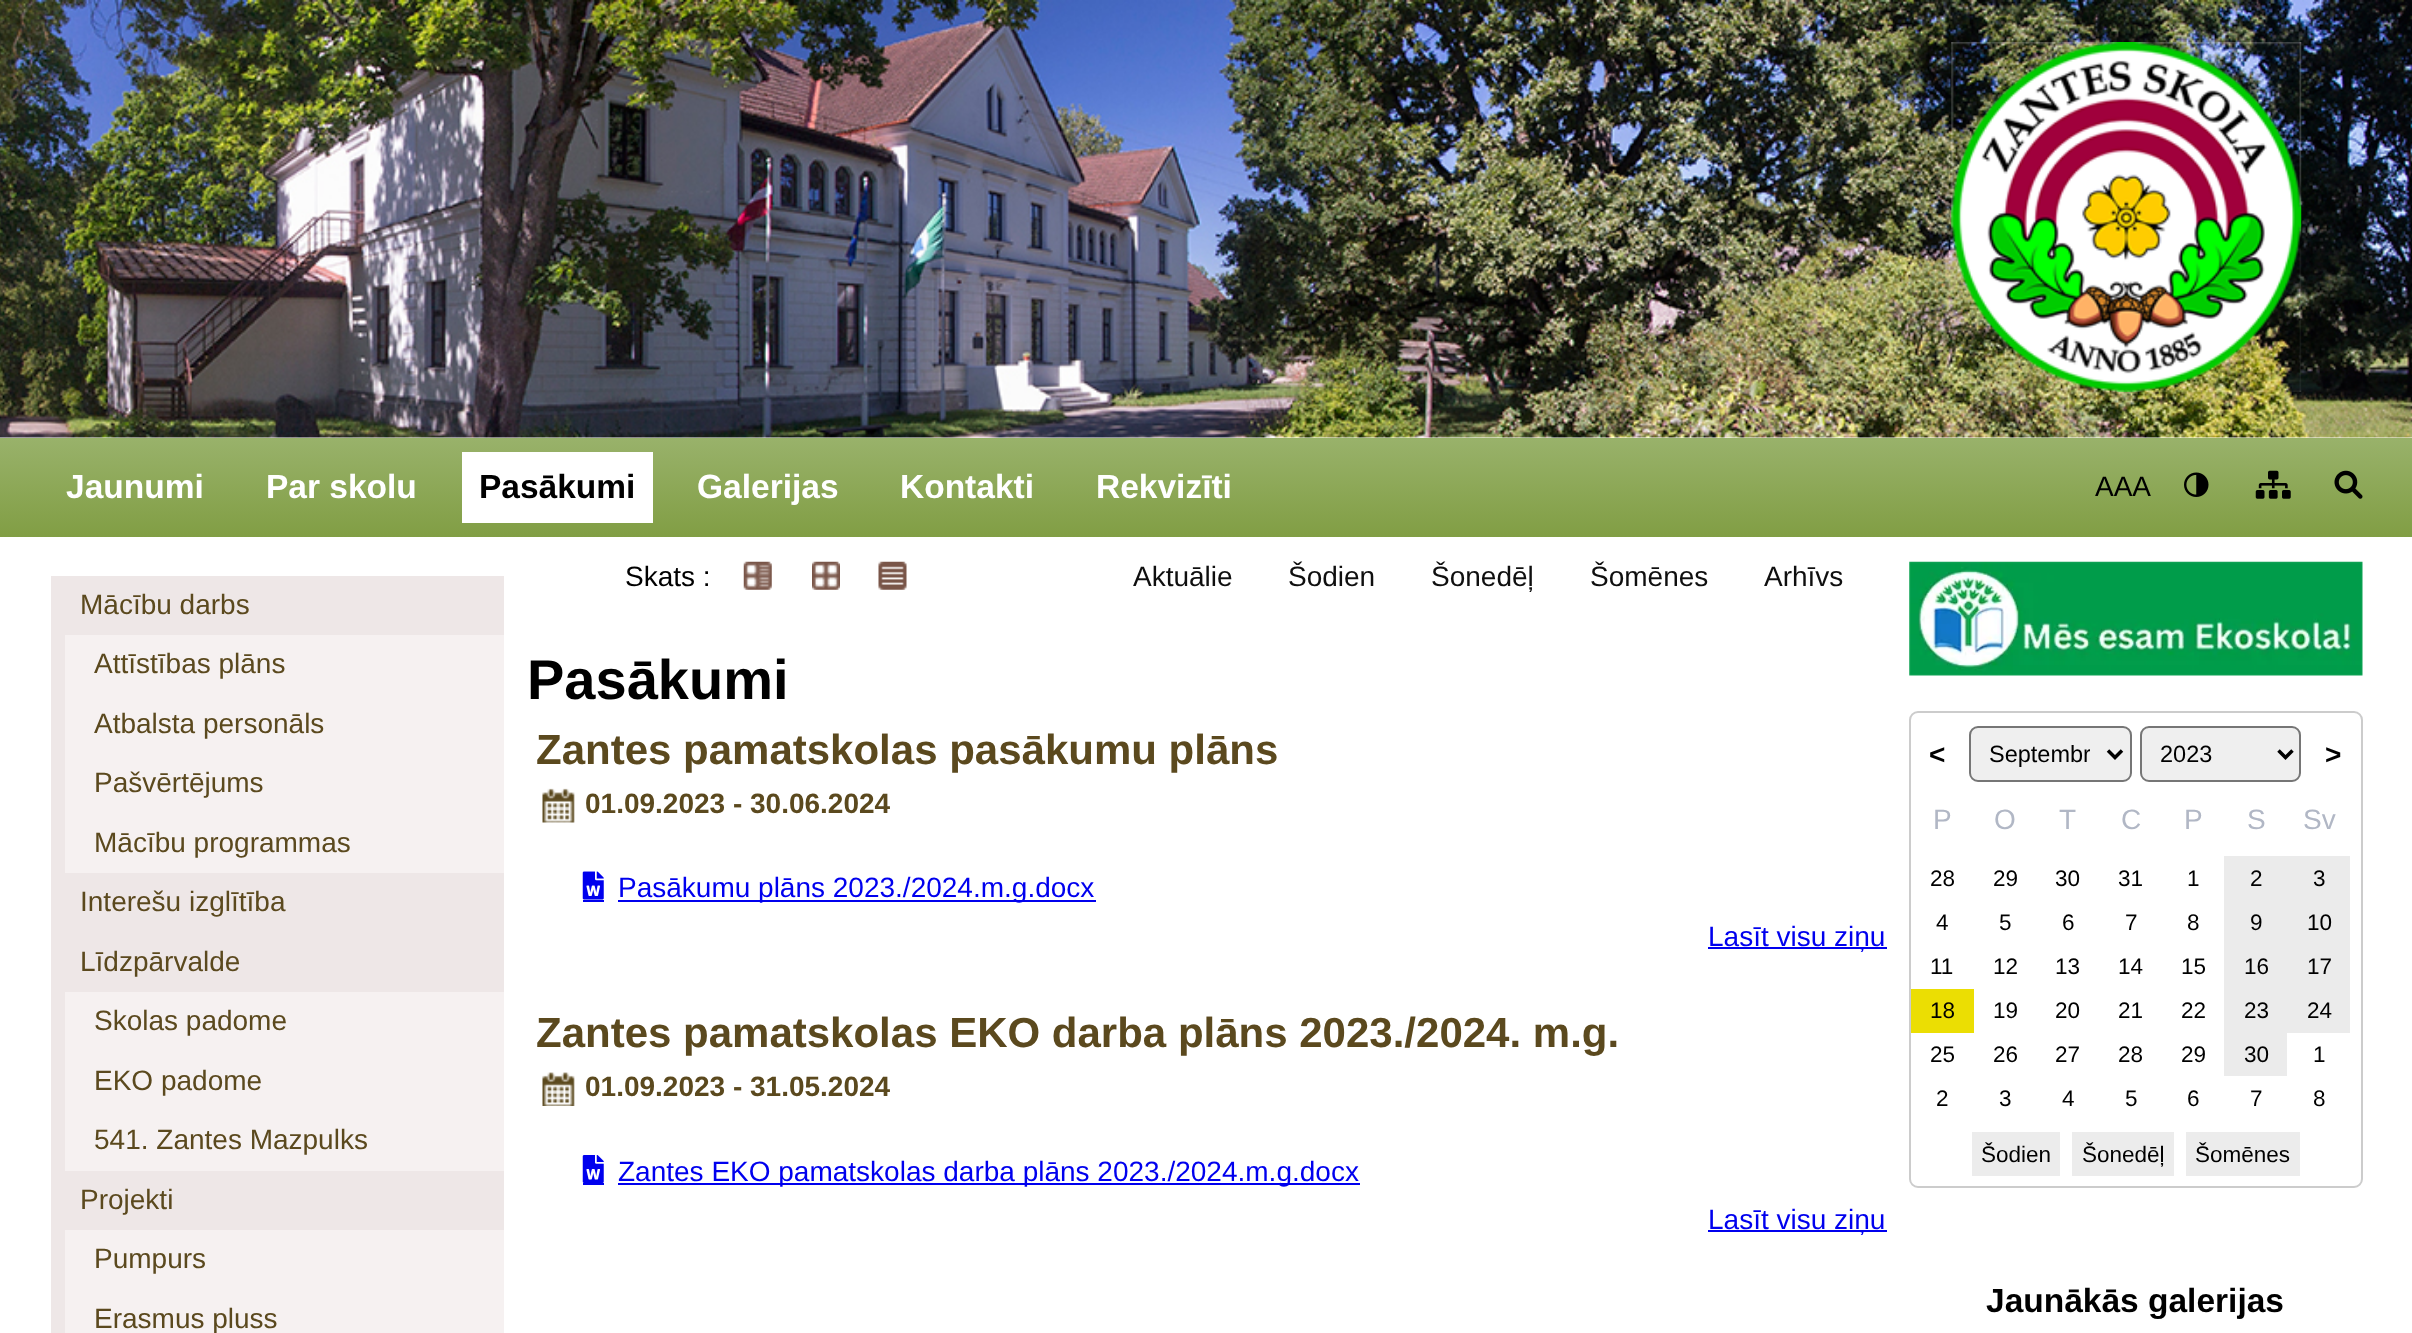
(async () => {
  const canvas = document.querySelector("canvas");
  canvas.width = 2412;
  canvas.height = 1333;
  const ctx = canvas.getContext("2d");
  ctx.miterLimit = 4;
  ctx.fontKerning = "normal";
  async function loadImage(src) {
    const img = new Image();
    img.src = src;
    await img.decode();
    return img;
  }
  let gradient, path;

  ctx.fillStyle = "#ffffff";
  ctx.fillRect(0, 0, 2412, 1333);
  ctx.drawImage(await loadImage("img/1.png"), 0, 0, 2412, 438);
  ctx.drawImage(await loadImage("img/2.png"), 1951, 42, 351, 350);
  gradient = ctx.createLinearGradient(1207, 437, 1207, 537);
  gradient.addColorStop(0, "#99b26b");
  gradient.addColorStop(1, "#819e44");
  ctx.fillStyle = gradient;
  ctx.fillRect(0, 438, 2412, 99);
  ctx.fillStyle = "#ffffff";
  ctx.fillRect(462, 452, 191, 71);
  ctx.drawImage(await loadImage("img/3.png"), 2184, 472, 25, 25);
  ctx.drawImage(await loadImage("img/4.png"), 2255, 470, 36, 29);
  ctx.drawImage(await loadImage("img/5.png"), 2334, 470, 29, 29);
  for (const [x, y, w, h, color] of [
    [51, 576, 453, 757, "#eee7e7"],
    [65, 635, 439, 238, "#f6f1f1"],
    [65, 992, 439, 179, "#f6f1f1"],
    [65, 1230, 439, 103, "#f6f1f1"],
  ]) {
    ctx.fillStyle = color;
    ctx.fillRect(x, y, w, h);
  }
  ctx.drawImage(await loadImage("img/6.png"), 743, 561, 29, 29);
  ctx.drawImage(await loadImage("img/7.png"), 812, 561, 28, 29);
  ctx.drawImage(await loadImage("img/8.png"), 878, 561, 29, 29);
  ctx.drawImage(await loadImage("img/9.png"), 542, 788, 33, 35);
  ctx.drawImage(await loadImage("img/10.png"), 582, 871, 22, 29);
  for (const [x, y, w, h, color] of [
    [583, 900, 21, 2, "#0000ee"],
    [618, 900, 478, 2, "#0000ee"],
    [1708, 947, 179, 2, "#0000ee"],
  ]) {
    ctx.fillStyle = color;
    ctx.fillRect(x, y, w, h);
  }
  ctx.drawImage(await loadImage("img/11.png"), 542, 1072, 33, 34);
  ctx.drawImage(await loadImage("img/12.png"), 582, 1155, 22, 28);
  for (const [x, y, w, h, color] of [
    [583, 1183, 21, 2, "#0000ee"],
    [618, 1183, 742, 2, "#0000ee"],
    [1708, 1230, 179, 2, "#0000ee"],
  ]) {
    ctx.fillStyle = color;
    ctx.fillRect(x, y, w, h);
  }
  ctx.drawImage(await loadImage("img/13.png"), 1909, 561, 454, 115);
  ctx.beginPath();
  ctx.roundRect(1910, 712, 452, 475, 8);
  ctx.strokeStyle = "#cccccc";
  ctx.lineWidth = 2;
  ctx.stroke();
  ctx.fillStyle = "#efefef";
  ctx.beginPath();
  ctx.roundRect(1970, 727, 161, 54, 8);
  ctx.fill();
  ctx.strokeStyle = "#767676";
  ctx.stroke();
  path = new Path2D("M2108 750.5L2115 757.5L2122 750.5");
  ctx.strokeStyle = "#000000";
  ctx.lineWidth = 3.5;
  ctx.stroke(path);
  ctx.beginPath();
  ctx.roundRect(2141, 727, 159, 54, 8);
  ctx.fill();
  ctx.strokeStyle = "#767676";
  ctx.lineWidth = 2;
  ctx.stroke();
  path = new Path2D("M2278.5 750.5L2285.5 757.5L2292.5 750.5");
  ctx.strokeStyle = "#000000";
  ctx.lineWidth = 3.5;
  ctx.stroke(path);
  for (const [x, y, w, h, color] of [
    [2224, 856, 126, 44, "#ebebeb"],
    [2224, 900, 126, 45, "#ebebeb"],
    [2224, 945, 126, 44, "#ebebeb"],
    [1911, 989, 63, 44, "#ebde03"],
    [2224, 989, 126, 44, "#ebebeb"],
    [2224, 1033, 63, 43, "#ebebeb"],
    [1972, 1132, 88, 44, "#ececec"],
    [2072, 1132, 102, 44, "#ececec"],
    [2186, 1132, 114, 44, "#ececec"],
  ]) {
    ctx.fillStyle = color;
    ctx.fillRect(x, y, w, h);
  }
  ctx.font = "bold 33.5px Liberation Sans";
  ctx.fillStyle = "#ffffff";
  ctx.fillText("Jaunumi", 66, 498);
  ctx.fillText("Par skolu", 266, 498);
  ctx.fillStyle = "#000000";
  ctx.fillText("Pasākumi", 479, 498);
  ctx.fillStyle = "#ffffff";
  for (const [text, x, y] of [
    ["Galerijas", 697, 498],
    ["Kontakti", 900, 498],
    ["Rekvizīti", 1096, 498],
  ]) {
    ctx.fillText(text, x, y);
  }
  ctx.font = "28px Liberation Sans";
  ctx.fillStyle = "#000000";
  ctx.fillText("AAA", 2095, 496);
  ctx.fillStyle = "#5b491e";
  for (const [text, x, y] of [
    ["Mācību darbs", 80, 614],
    ["Attīstības plāns", 94, 673],
    ["Atbalsta personāls", 94, 733],
    ["Pašvērtējums", 94, 792],
    ["Mācību programmas", 94, 852],
    ["Interešu izglītība", 80, 911],
    ["Līdzpārvalde", 80, 971],
    ["Skolas padome", 94, 1030],
    ["EKO padome", 94, 1090],
    ["541. Zantes Mazpulks", 94, 1149],
    ["Projekti", 80, 1209],
    ["Pumpurs", 94, 1268],
    ["Erasmus pluss", 94, 1328],
  ]) {
    ctx.fillText(text, x, y);
  }
  ctx.fillStyle = "#000000";
  ctx.fillText("Skats :", 625, 586);
  ctx.fillStyle = "#0f0f0f";
  for (const [text, x, y] of [
    ["Aktuālie", 1133, 586],
    ["Šodien", 1288, 586],
    ["Šonedēļ", 1431, 586],
    ["Šomēnes", 1590, 586],
    ["Arhīvs", 1764, 586],
  ]) {
    ctx.fillText(text, x, y);
  }
  ctx.font = "bold 56px Liberation Sans";
  ctx.fillStyle = "#000000";
  ctx.fillText("Pasākumi", 527, 699);
  ctx.font = "bold 42px Liberation Sans";
  ctx.fillStyle = "#5b491e";
  ctx.fillText("Zantes pamatskolas pasākumu plāns", 536, 764);
  ctx.font = "bold 28px Liberation Sans";
  ctx.fillText("01.09.2023 - 30.06.2024", 585, 813);
  ctx.font = "28px Liberation Sans";
  ctx.fillStyle = "#0000ee";
  ctx.fillText("Pasākumu plāns 2023./2024.m.g.docx", 618, 897);
  ctx.fillText("Lasīt visu ziņu", 1708, 946);
  ctx.font = "bold 42px Liberation Sans";
  ctx.fillStyle = "#5b491e";
  ctx.fillText("Zantes pamatskolas EKO darba plāns 2023./2024. m.g.", 536, 1047);
  ctx.font = "bold 28px Liberation Sans";
  ctx.fillText("01.09.2023 - 31.05.2024", 585, 1096);
  ctx.font = "28px Liberation Sans";
  ctx.fillStyle = "#0000ee";
  ctx.fillText("Zantes EKO pamatskolas darba plāns 2023./2024.m.g.docx", 618, 1181);
  ctx.fillText("Lasīt visu ziņu", 1708, 1229);
  ctx.font = "bold 28px Liberation Sans";
  ctx.fillStyle = "#000000";
  ctx.fillText("<", 1929, 764);
  ctx.save();
  ctx.beginPath();
  ctx.rect(1990, 739, 100, 29);
  ctx.clip();
  ctx.font = "23.5px Liberation Sans";
  ctx.fillText("Septembr", 1989, 762);
  ctx.restore();
  ctx.font = "23.5px Liberation Sans";
  ctx.fillText("2023", 2160, 762);
  ctx.font = "bold 28px Liberation Sans";
  ctx.fillText(">", 2325, 764);
  ctx.font = "28px Liberation Sans";
  ctx.fillStyle = "#b1b7c5";
  for (const [text, x, y] of [
    ["P", 1933, 829],
    ["O", 1994, 829],
    ["T", 2059, 829],
    ["C", 2121, 829],
    ["P", 2184, 829],
    ["S", 2247, 829],
    ["Sv", 2303, 829],
  ]) {
    ctx.fillText(text, x, y);
  }
  ctx.font = "22.5px Liberation Sans";
  ctx.fillStyle = "#000000";
  for (const [text, x, y] of [
    ["28", 1930, 886],
    ["29", 1993, 886],
    ["30", 2055, 886],
    ["31", 2118, 886],
    ["1", 2187, 886],
    ["2", 2250, 886],
    ["3", 2313, 886],
    ["4", 1936, 930],
    ["5", 1999, 930],
    ["6", 2062, 930],
    ["7", 2125, 930],
    ["8", 2187, 930],
    ["9", 2250, 930],
    ["10", 2307, 930],
    ["11", 1930, 974],
    ["12", 1993, 974],
    ["13", 2055, 974],
    ["14", 2118, 974],
    ["15", 2181, 974],
    ["16", 2244, 974],
    ["17", 2307, 974],
    ["18", 1930, 1018],
    ["19", 1993, 1018],
    ["20", 2055, 1018],
    ["21", 2118, 1018],
    ["22", 2181, 1018],
    ["23", 2244, 1018],
    ["24", 2307, 1018],
    ["25", 1930, 1062],
    ["26", 1993, 1062],
    ["27", 2055, 1062],
    ["28", 2118, 1062],
    ["29", 2181, 1062],
    ["30", 2244, 1062],
    ["1", 2313, 1062],
    ["2", 1936, 1106],
    ["3", 1999, 1106],
    ["4", 2062, 1106],
    ["5", 2125, 1106],
    ["6", 2187, 1106],
    ["7", 2250, 1106],
    ["8", 2313, 1106],
    ["Šodien", 1981, 1162],
    ["Šonedēļ", 2082, 1162],
    ["Šomēnes", 2195, 1162],
  ]) {
    ctx.fillText(text, x, y);
  }
  ctx.font = "bold 33.5px Liberation Sans";
  ctx.fillText("Jaunākās galerijas", 1986, 1312);
})();
